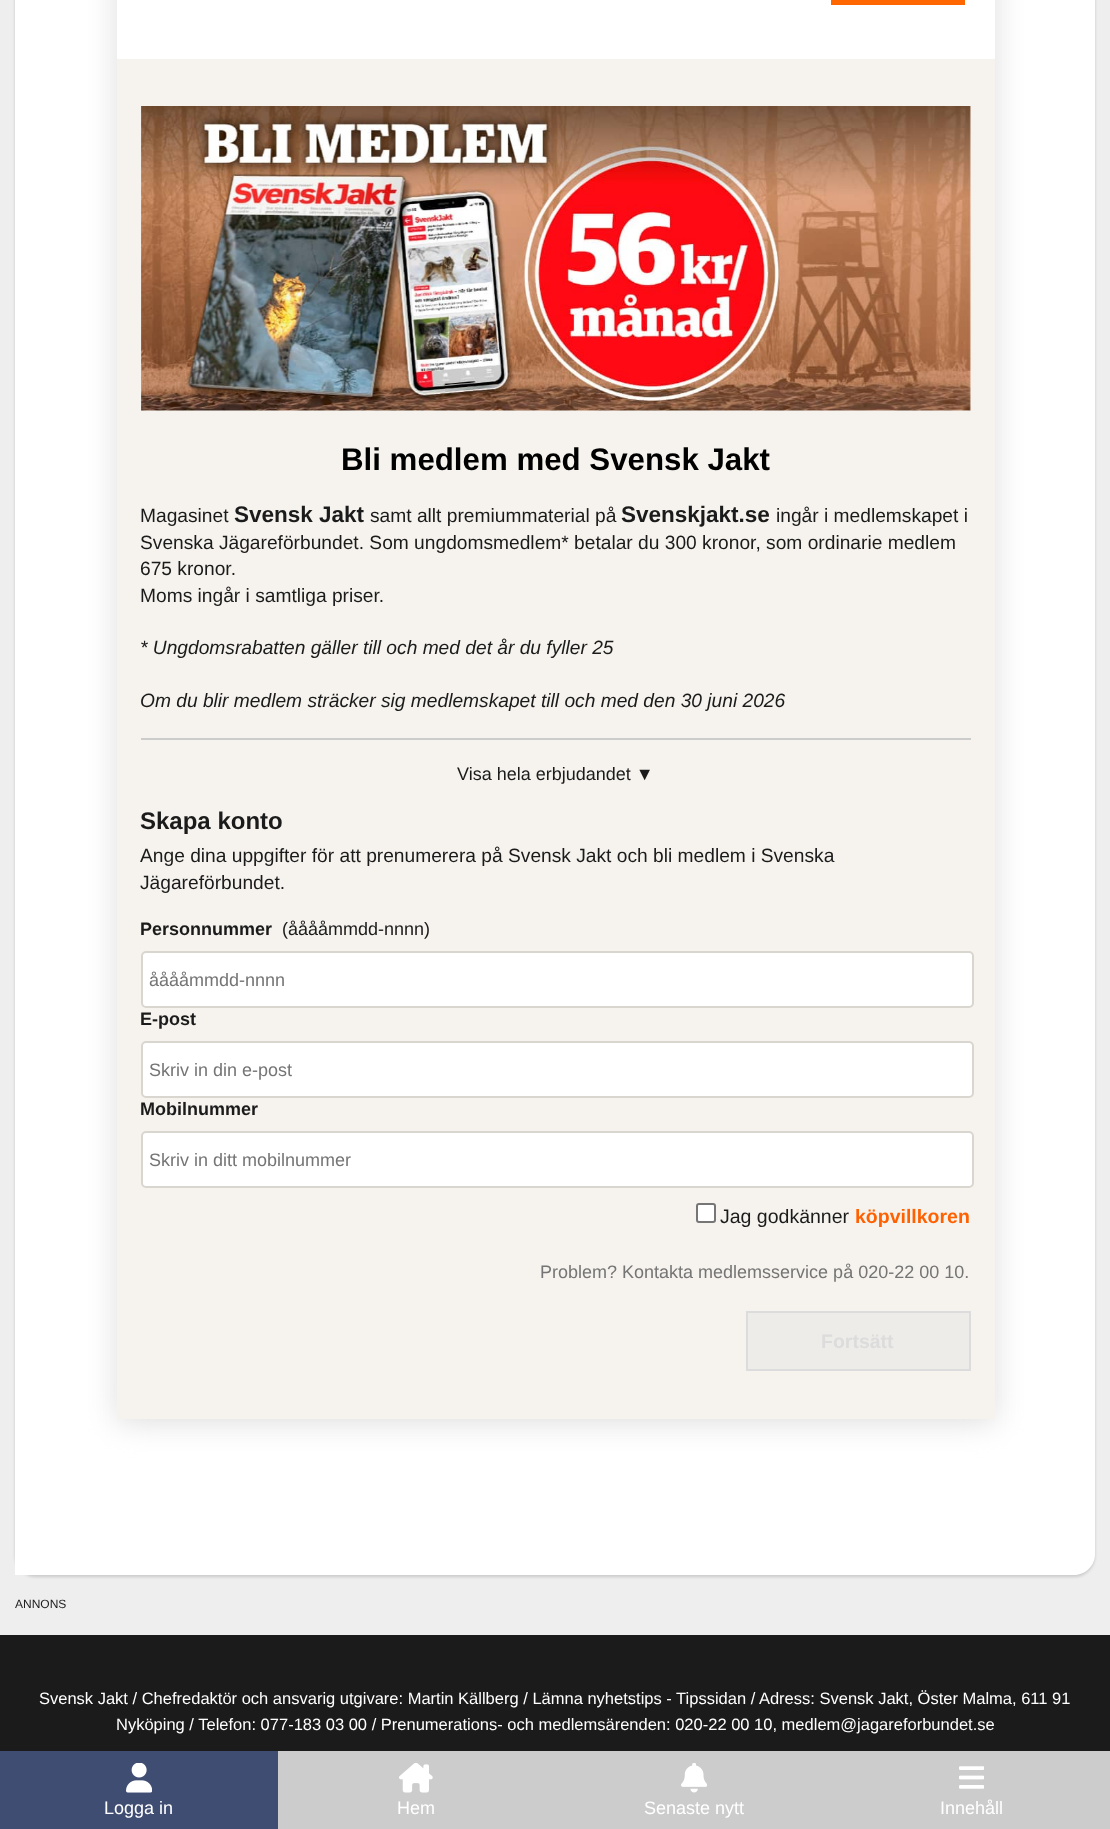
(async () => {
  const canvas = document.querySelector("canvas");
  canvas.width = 1110;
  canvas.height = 1829;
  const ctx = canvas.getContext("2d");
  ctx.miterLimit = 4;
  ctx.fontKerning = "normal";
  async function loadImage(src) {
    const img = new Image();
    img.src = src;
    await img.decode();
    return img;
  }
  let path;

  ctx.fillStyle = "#eeeeee";
  ctx.fillRect(0, 0, 1110, 1829);
  ctx.fillStyle = "rgba(0, 0, 0, 0.15)";
  ctx.filter = "blur(1.5px)";
  ctx.beginPath();
  ctx.roundRect(15, -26, 1080, 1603, 21);
  ctx.fill();
  ctx.filter = "none";
  ctx.fillStyle = "#ffffff";
  path = new Path2D("M36-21H1074C1085.5-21 1095-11.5 1095 0V1554C1095 1565.5 1085.5 1575 1074 1575H15V0C15-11.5 24.5-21 36-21Z");
  ctx.fill(path);
  ctx.save();
  path = new Path2D("M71 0H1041V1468H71ZM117-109H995V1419H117Z");
  ctx.clip(path, "evenodd");
  ctx.fillStyle = "#dddddd";
  ctx.filter = "blur(15px)";
  ctx.beginPath();
  ctx.rect(117, -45, 878, 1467);
  ctx.fill();
  ctx.filter = "none";
  ctx.restore();
  ctx.fillStyle = "#ff6600";
  ctx.fillRect(831, 0, 134, 5);
  ctx.fillStyle = "#f6f3ee";
  ctx.fillRect(117, 59, 878, 1360);
  ctx.drawImage(await loadImage("img/1.png"), 141, 106, 830, 305);
  ctx.fillStyle = "#cccccc";
  ctx.fillRect(141, 738, 830, 2);
  ctx.fillStyle = "#ffffff";
  ctx.beginPath();
  ctx.roundRect(142, 952, 831, 55, 4);
  ctx.fill();
  ctx.strokeStyle = "#d9d6d0";
  ctx.lineWidth = 2;
  ctx.stroke();
  ctx.beginPath();
  ctx.roundRect(142, 1042, 831, 55, 4);
  ctx.fill();
  ctx.stroke();
  ctx.beginPath();
  ctx.roundRect(142, 1132, 831, 55, 4);
  ctx.fill();
  ctx.stroke();
  ctx.beginPath();
  ctx.roundRect(697, 1204, 18, 18, 2);
  ctx.fill();
  ctx.strokeStyle = "#767676";
  ctx.stroke();
  ctx.fillStyle = "#eeece9";
  ctx.beginPath();
  ctx.rect(747, 1312, 223, 58);
  ctx.fill();
  ctx.strokeStyle = "#dcdcdc";
  ctx.stroke();
  for (const [x, y, w, h, color] of [
    [0, 1635, 1110, 116, "#1b1b1b"],
    [278, 1751, 832, 78, "#cccccc"],
    [0, 1751, 278, 78, "#404d73"],
  ]) {
    ctx.fillStyle = color;
    ctx.fillRect(x, y, w, h);
  }
  ctx.drawImage(await loadImage("img/2.png"), 126, 1763, 26, 30);
  ctx.drawImage(await loadImage("img/3.png"), 399, 1763, 34, 30);
  ctx.drawImage(await loadImage("img/4.png"), 681, 1763, 26, 30);
  ctx.drawImage(await loadImage("img/5.png"), 959, 1766, 25, 23);
  ctx.font = "bold 31.25px Liberation Sans";
  ctx.fillStyle = "#000000";
  ctx.fillText("Bli medlem med Svensk Jakt", 341, 470);
  ctx.font = "19.2px Liberation Sans";
  ctx.fillStyle = "#1b1b1b";
  ctx.fillText("Magasinet", 140, 522);
  ctx.font = "bold 22.5px Liberation Sans";
  ctx.fillText("Svensk Jakt", 234, 522);
  ctx.font = "19.2px Liberation Sans";
  ctx.fillText("samt allt premiummaterial på", 370, 522);
  ctx.font = "bold 22.5px Liberation Sans";
  ctx.fillText("Svenskjakt.se", 621, 522);
  ctx.font = "19.2px Liberation Sans";
  for (const [text, x, y] of [
    ["ingår i medlemskapet i", 776, 522],
    ["Svenska Jägareförbundet. Som ungdomsmedlem* betalar du 300 kronor, som ordinarie medlem", 140, 549],
    ["675 kronor.", 140, 575],
    ["Moms ingår i samtliga priser.", 140, 602],
  ]) {
    ctx.fillText(text, x, y);
  }
  ctx.font = "italic 19.2px Liberation Sans";
  ctx.fillText("* Ungdomsrabatten gäller till och med det år du fyller 25", 140, 654);
  ctx.fillText("Om du blir medlem sträcker sig medlemskapet till och med den 30 juni 2026", 140, 707);
  ctx.font = "18px Liberation Sans";
  ctx.fillText("Visa hela erbjudandet ▼", 457, 780);
  ctx.font = "bold 24px Liberation Sans";
  ctx.fillText("Skapa konto", 140, 829);
  ctx.font = "19.2px Liberation Sans";
  ctx.fillText("Ange dina uppgifter för att prenumerera på Svensk Jakt och bli medlem i Svenska", 140, 862);
  ctx.fillText("Jägareförbundet.", 140, 889);
  ctx.font = "bold 18px Liberation Sans";
  ctx.fillText("Personnummer", 140, 935);
  ctx.font = "18px Liberation Sans";
  ctx.fillText("(ååååmmdd-nnnn)", 282, 935);
  ctx.fillStyle = "#757575";
  ctx.fillText("ååååmmdd-nnnn", 149, 986);
  ctx.font = "bold 18px Liberation Sans";
  ctx.fillStyle = "#1b1b1b";
  ctx.fillText("E-post", 140, 1025);
  ctx.font = "18px Liberation Sans";
  ctx.fillStyle = "#757575";
  ctx.fillText("Skriv in din e-post", 149, 1076);
  ctx.font = "bold 18px Liberation Sans";
  ctx.fillStyle = "#1b1b1b";
  ctx.fillText("Mobilnummer", 140, 1115);
  ctx.font = "18px Liberation Sans";
  ctx.fillStyle = "#757575";
  ctx.fillText("Skriv in ditt mobilnummer", 149, 1166);
  ctx.font = "19.5px Liberation Sans";
  ctx.fillStyle = "#1b1b1b";
  ctx.fillText("Jag godkänner", 720, 1223);
  ctx.font = "bold 19.5px Liberation Sans";
  ctx.fillStyle = "#ff6000";
  ctx.fillText("köpvillkoren", 855, 1223);
  ctx.font = "18px Liberation Sans";
  ctx.fillStyle = "#757575";
  ctx.fillText("Problem? Kontakta medlemsservice på 020-22 00 10.", 540, 1278);
  ctx.font = "bold 19.5px Liberation Sans";
  ctx.fillStyle = "#dcdcdc";
  ctx.fillText("Fortsätt", 821, 1348);
  ctx.font = "12px Liberation Sans";
  ctx.fillStyle = "#1b1b1b";
  ctx.fillText("ANNONS", 15, 1608);
  ctx.font = "16.5px Liberation Sans";
  ctx.fillStyle = "#ffffff";
  ctx.fillText("Svensk Jakt / Chefredaktör och ansvarig utgivare: Martin Källberg / Lämna nyhetstips - Tipssidan / Adress: Svensk Jakt, Öster Malma, 611 91", 39, 1704);
  ctx.fillText("Nyköping / Telefon: 077-183 03 00 / Prenumerations- och medlemsärenden: 020-22 00 10, medlem@jagareforbundet.se", 116, 1730);
  ctx.font = "18px Liberation Sans";
  for (const [text, x, y] of [
    ["Logga in", 104, 1814],
    ["Hem", 397, 1814],
    ["Senaste nytt", 644, 1814],
    ["Innehåll", 940, 1814],
  ]) {
    ctx.fillText(text, x, y);
  }
})();
